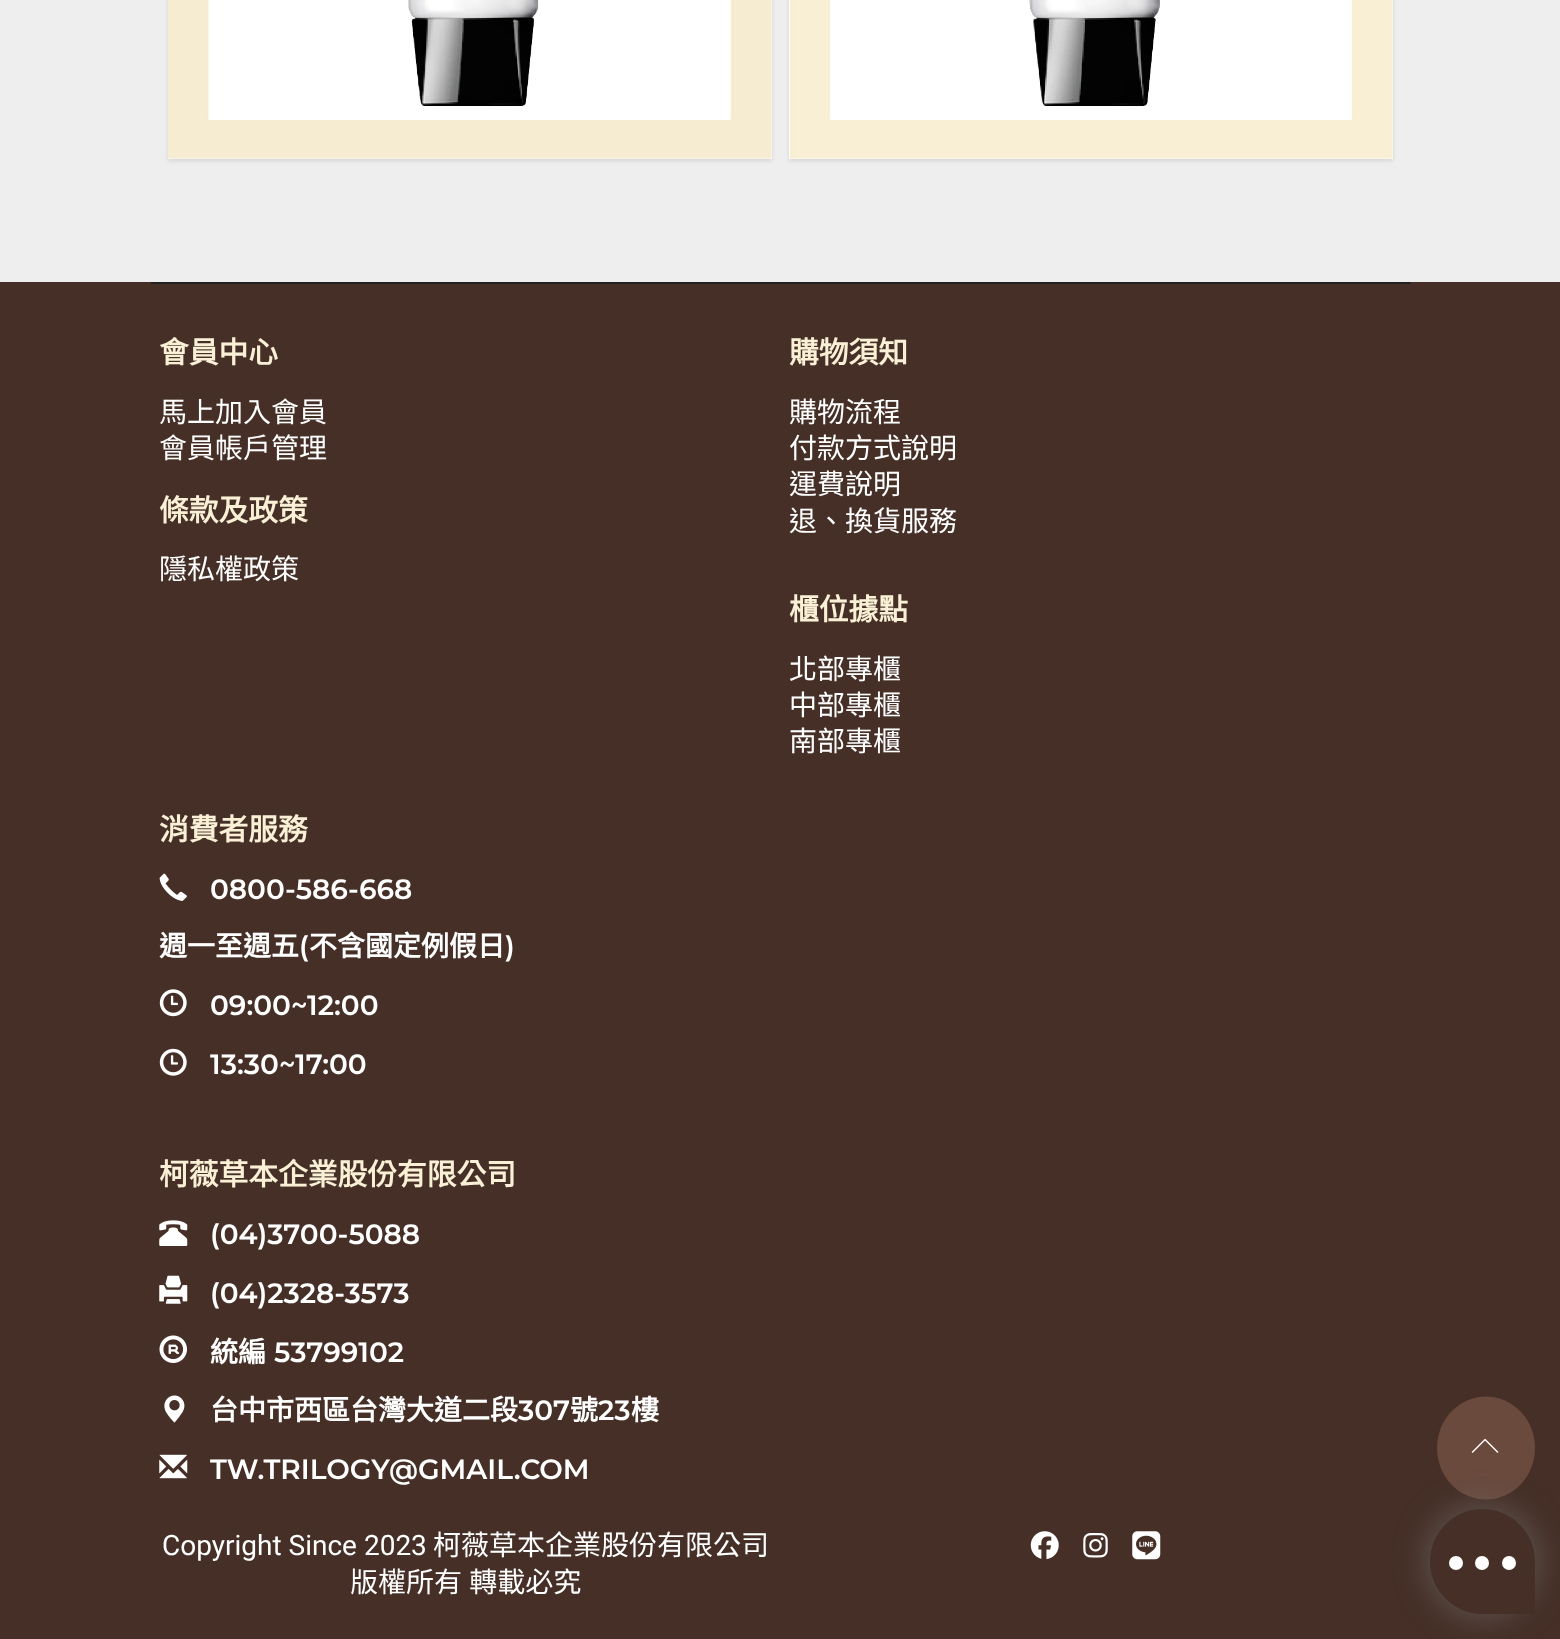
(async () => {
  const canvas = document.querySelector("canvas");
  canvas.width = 1560;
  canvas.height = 1639;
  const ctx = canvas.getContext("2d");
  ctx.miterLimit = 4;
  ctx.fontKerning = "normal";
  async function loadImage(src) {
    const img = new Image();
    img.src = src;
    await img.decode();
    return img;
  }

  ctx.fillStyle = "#eeeeee";
  ctx.fillRect(0, 0, 1560, 1639);
  ctx.fillStyle = "rgba(0, 0, 0, 0.1)";
  ctx.filter = "blur(2px)";
  ctx.beginPath();
  ctx.rect(168, -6, 604, 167);
  ctx.fill();
  ctx.filter = "none";
  ctx.fillStyle = "#ffffff";
  ctx.fillRect(168, 0, 604, 159);
  ctx.drawImage(await loadImage("img/1.png"), 168, 0, 604, 159);
  ctx.fillStyle = "rgba(0, 0, 0, 0.1)";
  ctx.filter = "blur(2px)";
  ctx.beginPath();
  ctx.rect(789, -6, 604, 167);
  ctx.fill();
  ctx.filter = "none";
  ctx.fillStyle = "#ffffff";
  ctx.fillRect(789, 0, 604, 159);
  ctx.drawImage(await loadImage("img/2.png"), 789, 0, 604, 159);
  ctx.fillStyle = "#452f27";
  ctx.fillRect(0, 282, 1560, 1357);
  ctx.fillStyle = "#222222";
  ctx.fillRect(151, 282, 1260, 2);
  ctx.drawImage(await loadImage("img/3.png"), 159, 873, 28, 28);
  ctx.drawImage(await loadImage("img/4.png"), 159, 989, 28, 28);
  ctx.drawImage(await loadImage("img/5.png"), 159, 1048, 28, 28);
  ctx.drawImage(await loadImage("img/6.png"), 159, 1220, 29, 26);
  ctx.drawImage(await loadImage("img/7.png"), 159, 1275, 29, 29);
  ctx.drawImage(await loadImage("img/8.png"), 159, 1335, 28, 28);
  ctx.drawImage(await loadImage("img/9.png"), 164, 1395, 21, 28);
  ctx.drawImage(await loadImage("img/10.png"), 159, 1454, 29, 25);
  ctx.drawImage(await loadImage("img/11.png"), 1030, 1531, 29, 29);
  ctx.drawImage(await loadImage("img/12.png"), 1083, 1533, 25, 25);
  ctx.drawImage(await loadImage("img/13.png"), 1132, 1531, 29, 29);
  ctx.fillStyle = "#694a3d";
  ctx.beginPath();
  ctx.ellipse(1486, 1448, 49, 51.5, 0, 0, Math.PI * 2);
  ctx.fill();
  ctx.drawImage(await loadImage("img/14.png"), 1471, 1438, 28, 15);
  ctx.fillStyle = "rgba(119, 119, 119, 0.64)";
  ctx.filter = "blur(17.5px)";
  ctx.beginPath();
  ctx.roundRect(1430, 1509, 105, 105, 52.5);
  ctx.fill();
  ctx.filter = "none";
  ctx.fillStyle = "#452f27";
  ctx.beginPath();
  ctx.roundRect(1430, 1509, 105, 105, [52.5, 52.5, 0, 52.5]);
  ctx.fill();
  ctx.fillStyle = "#ffffff";
  ctx.beginPath();
  ctx.arc(1456, 1563, 7, 0, Math.PI * 2);
  ctx.fill();
  ctx.beginPath();
  ctx.arc(1482, 1563, 7, 0, Math.PI * 2);
  ctx.fill();
  ctx.beginPath();
  ctx.arc(1509, 1563, 7, 0, Math.PI * 2);
  ctx.fill();
  ctx.font = "bold 29.75px Noto Sans CJK TC";
  ctx.fillStyle = "#f9f0d5";
  ctx.fillText("會員中心", 159, 363);
  ctx.font = "28px Noto Sans CJK TC";
  ctx.fillStyle = "#ffffff";
  ctx.fillText("馬上加入會員", 159, 422);
  ctx.fillText("會員帳戶管理", 159, 458);
  ctx.font = "bold 29.75px Noto Sans CJK TC";
  ctx.fillStyle = "#f9f0d5";
  ctx.fillText("條款及政策", 159, 521);
  ctx.font = "28px Noto Sans CJK TC";
  ctx.fillStyle = "#ffffff";
  ctx.fillText("隱私權政策", 159, 579);
  ctx.font = "bold 29.75px Noto Sans CJK TC";
  ctx.fillStyle = "#f9f0d5";
  ctx.fillText("購物須知", 789, 363);
  ctx.font = "28px Noto Sans CJK TC";
  ctx.fillStyle = "#ffffff";
  for (const [text, x, y] of [
    ["購物流程", 789, 422],
    ["付款方式說明", 789, 458],
    ["運費說明", 789, 494],
    ["退、換貨服務", 789, 531],
  ]) {
    ctx.fillText(text, x, y);
  }
  ctx.font = "bold 29.75px Noto Sans CJK TC";
  ctx.fillStyle = "#f9f0d5";
  ctx.fillText("櫃位據點", 789, 620);
  ctx.font = "28px Noto Sans CJK TC";
  ctx.fillStyle = "#ffffff";
  for (const [text, x, y] of [
    ["北部專櫃", 789, 679],
    ["中部專櫃", 789, 715],
    ["南部專櫃", 789, 751],
  ]) {
    ctx.fillText(text, x, y);
  }
  ctx.font = "bold 29.75px Noto Sans CJK TC";
  ctx.fillStyle = "#f9f0d5";
  ctx.fillText("消費者服務", 159, 840);
  ctx.font = "600 28px Montserrat";
  ctx.fillStyle = "#ffffff";
  ctx.fillText("0800-586-668", 210, 899);
  ctx.font = "bold 28px Noto Sans CJK TC";
  ctx.fillText("週一至週五", 159, 956);
  ctx.font = "600 28px Montserrat";
  ctx.fillText("(", 299, 956);
  ctx.font = "bold 28px Noto Sans CJK TC";
  ctx.fillText("不含國定例假日", 309, 956);
  ctx.font = "600 28px Montserrat";
  for (const [text, x, y] of [
    [")", 505, 956],
    ["09:00~12:00", 210, 1015],
    ["13:30~17:00", 210, 1074],
  ]) {
    ctx.fillText(text, x, y);
  }
  ctx.font = "bold 29.75px Noto Sans CJK TC";
  ctx.fillStyle = "#f9f0d5";
  ctx.fillText("柯薇草本企業股份有限公司", 159, 1185);
  ctx.font = "600 28px Montserrat";
  ctx.fillStyle = "#ffffff";
  ctx.fillText("(04)3700-5088", 210, 1244);
  ctx.fillText("(04)2328-3573", 210, 1303);
  ctx.font = "bold 28px Noto Sans CJK TC";
  ctx.fillText("統編", 210, 1362);
  ctx.font = "600 28px Montserrat";
  ctx.fillText("53799102", 274, 1362);
  ctx.font = "bold 28px Noto Sans CJK TC";
  ctx.fillText("台中市西區台灣大道二段", 210, 1420);
  ctx.font = "600 28px Montserrat";
  ctx.fillText("307", 518, 1420);
  ctx.font = "bold 28px Noto Sans CJK TC";
  ctx.fillText("號", 570, 1420);
  ctx.font = "600 28px Montserrat";
  ctx.fillText("23", 598, 1420);
  ctx.font = "bold 28px Noto Sans CJK TC";
  ctx.fillText("樓", 631, 1420);
  ctx.font = "600 28px Montserrat";
  ctx.fillText("TW.TRILOGY@GMAIL.COM", 210, 1479);
  ctx.font = "28px Roboto";
  ctx.fillText("Copyright Since 2023", 162, 1555);
  ctx.font = "28px Noto Sans CJK TC";
  ctx.fillText("柯薇草本企業股份有限公司", 433, 1555);
  ctx.wordSpacing = "1px";
  ctx.fillText("版權所有 轉載必究", 350, 1592);
})();
